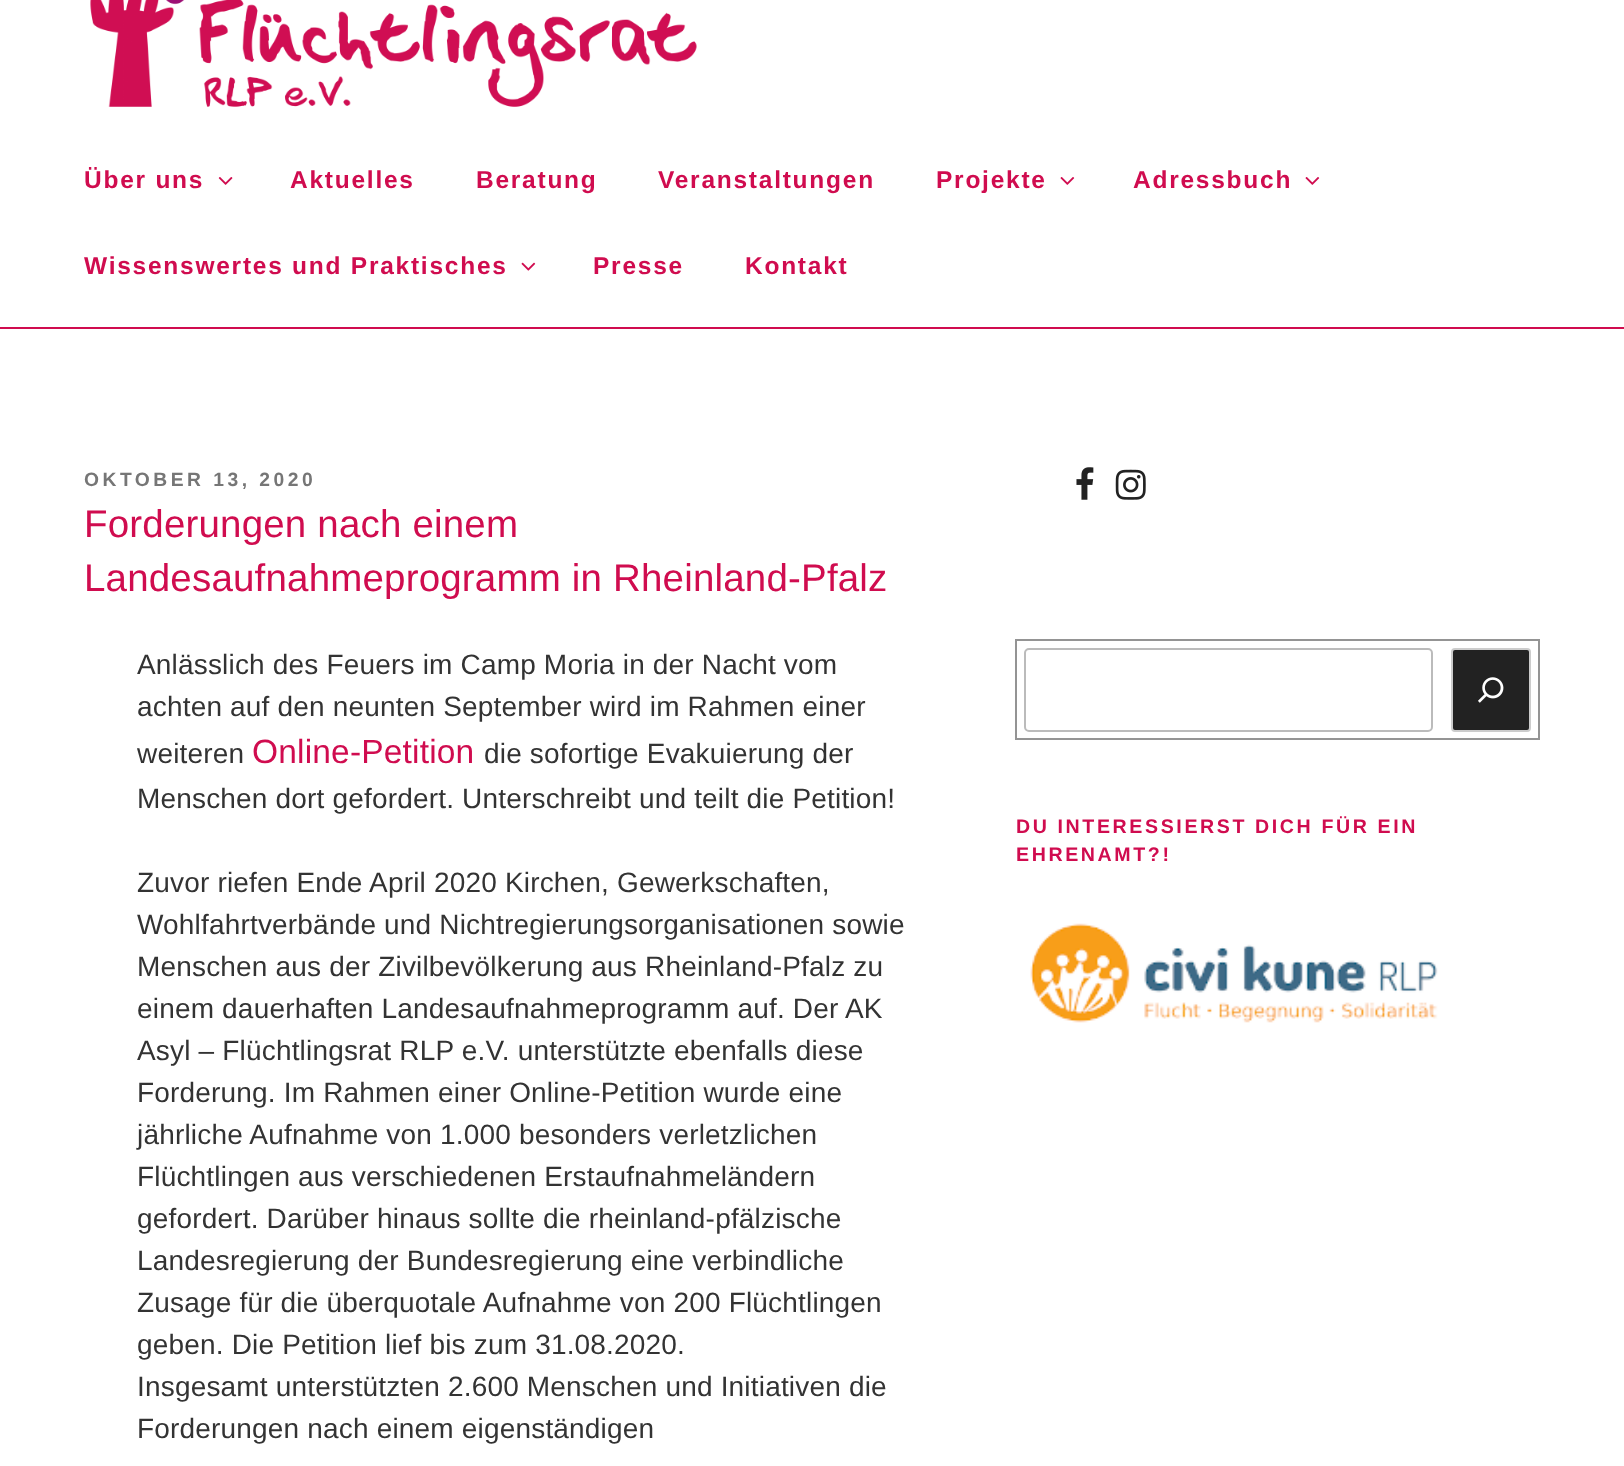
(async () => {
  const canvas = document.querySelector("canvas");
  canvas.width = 1624;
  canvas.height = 1466;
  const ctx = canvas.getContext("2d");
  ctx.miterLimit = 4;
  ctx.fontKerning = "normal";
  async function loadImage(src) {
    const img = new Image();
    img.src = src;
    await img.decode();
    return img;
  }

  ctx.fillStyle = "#ffffff";
  ctx.fillRect(0, 0, 1624, 1466);
  ctx.drawImage(await loadImage("img/1.png"), 90, 0, 607, 107);
  ctx.fillStyle = "#d00c4f";
  ctx.fillRect(0, 327, 1624, 2);
  ctx.drawImage(await loadImage("img/2.png"), 218, 177, 15, 8);
  ctx.drawImage(await loadImage("img/3.png"), 1060, 177, 15, 8);
  ctx.drawImage(await loadImage("img/3.png"), 1305, 177, 15, 8);
  ctx.drawImage(await loadImage("img/4.png"), 521, 262, 15, 9);
  ctx.drawImage(await loadImage("img/5.png"), 1076, 467, 18, 33);
  ctx.drawImage(await loadImage("img/6.png"), 1115, 469, 31, 31);
  ctx.strokeStyle = "#949494";
  ctx.lineWidth = 2;
  ctx.strokeRect(1016, 640, 523, 99);
  ctx.beginPath();
  ctx.roundRect(1025, 649, 407, 82, 4);
  ctx.strokeStyle = "#bbbbbb";
  ctx.stroke();
  ctx.fillStyle = "#222222";
  ctx.beginPath();
  ctx.roundRect(1452, 649, 78, 82, 3);
  ctx.fill();
  ctx.strokeStyle = "#cccccc";
  ctx.stroke();
  ctx.drawImage(await loadImage("img/7.png"), 1478, 677, 26, 26);
  ctx.drawImage(await loadImage("img/8.png"), 1030, 923, 408, 100);
  ctx.letterSpacing = "1.75px";
  ctx.font = "bold 24.5px Liberation Sans";
  ctx.fillStyle = "#d00c4f";
  for (const [text, x, y] of [
    ["Über uns", 84, 188],
    ["Aktuelles", 290, 188],
    ["Beratung", 476, 188],
    ["Veranstaltungen", 658, 188],
    ["Projekte", 936, 188],
    ["Adressbuch", 1133, 188],
    ["Wissenswertes und Praktisches", 84, 274],
    ["Presse", 593, 274],
    ["Kontakt", 745, 274],
  ]) {
    ctx.fillText(text, x, y);
  }
  ctx.letterSpacing = "3.5px";
  ctx.font = "bold 19.25px Liberation Sans";
  ctx.fillStyle = "#767676";
  ctx.fillText("OKTOBER 13, 2020", 84, 486);
  ctx.letterSpacing = "0.18px";
  ctx.font = "38.5px Liberation Sans";
  ctx.fillStyle = "#d00c4f";
  ctx.fillText("Forderungen nach einem", 84, 537);
  ctx.fillText("Landesaufnahmeprogramm in Rheinland-Pfalz", 84, 591);
  ctx.font = "28px Liberation Sans";
  ctx.fillStyle = "#333333";
  for (const [text, x, y] of [
    ["Anlässlich des Feuers im Camp Moria in der Nacht vom", 137, 674],
    ["achten auf den neunten September wird im Rahmen einer", 137, 716],
    ["weiteren", 137, 763],
  ]) {
    ctx.fillText(text, x, y);
  }
  ctx.font = "33.5px Liberation Sans";
  ctx.fillStyle = "#d00c4f";
  ctx.fillText("Online-Petition", 252, 763);
  ctx.font = "28px Liberation Sans";
  ctx.fillStyle = "#333333";
  for (const [text, x, y] of [
    ["die sofortige Evakuierung der", 484, 763],
    ["Menschen dort gefordert. Unterschreibt und teilt die Petition!", 137, 808],
    ["Zuvor riefen Ende April 2020 Kirchen, Gewerkschaften,", 137, 892],
    ["Wohlfahrtverbände und Nichtregierungsorganisationen sowie", 137, 934],
    ["Menschen aus der Zivilbevölkerung aus Rheinland-Pfalz zu", 137, 976],
    ["einem dauerhaften Landesaufnahmeprogramm auf. Der AK", 137, 1018],
    ["Asyl – Flüchtlingsrat RLP e.V. unterstützte ebenfalls diese", 137, 1060],
    ["Forderung. Im Rahmen einer Online-Petition wurde eine", 137, 1102],
    ["jährliche Aufnahme von 1.000 besonders verletzlichen", 137, 1144],
    ["Flüchtlingen aus verschiedenen Erstaufnahmeländern", 137, 1186],
    ["gefordert. Darüber hinaus sollte die rheinland-pfälzische", 137, 1228],
    ["Landesregierung der Bundesregierung eine verbindliche", 137, 1270],
    ["Zusage für die überquotale Aufnahme von 200 Flüchtlingen", 137, 1312],
    ["geben. Die Petition lief bis zum 31.08.2020.", 137, 1354],
    ["Insgesamt unterstützten 2.600 Menschen und Initiativen die", 137, 1396],
    ["Forderungen nach einem eigenständigen", 137, 1438],
  ]) {
    ctx.fillText(text, x, y);
  }
  ctx.letterSpacing = "2.6px";
  ctx.font = "bold 19.6px Liberation Sans";
  ctx.fillStyle = "#d00c4f";
  ctx.fillText("DU INTERESSIERST DICH FÜR EIN", 1016, 833);
  ctx.fillText("EHRENAMT?!", 1016, 861);
})();
